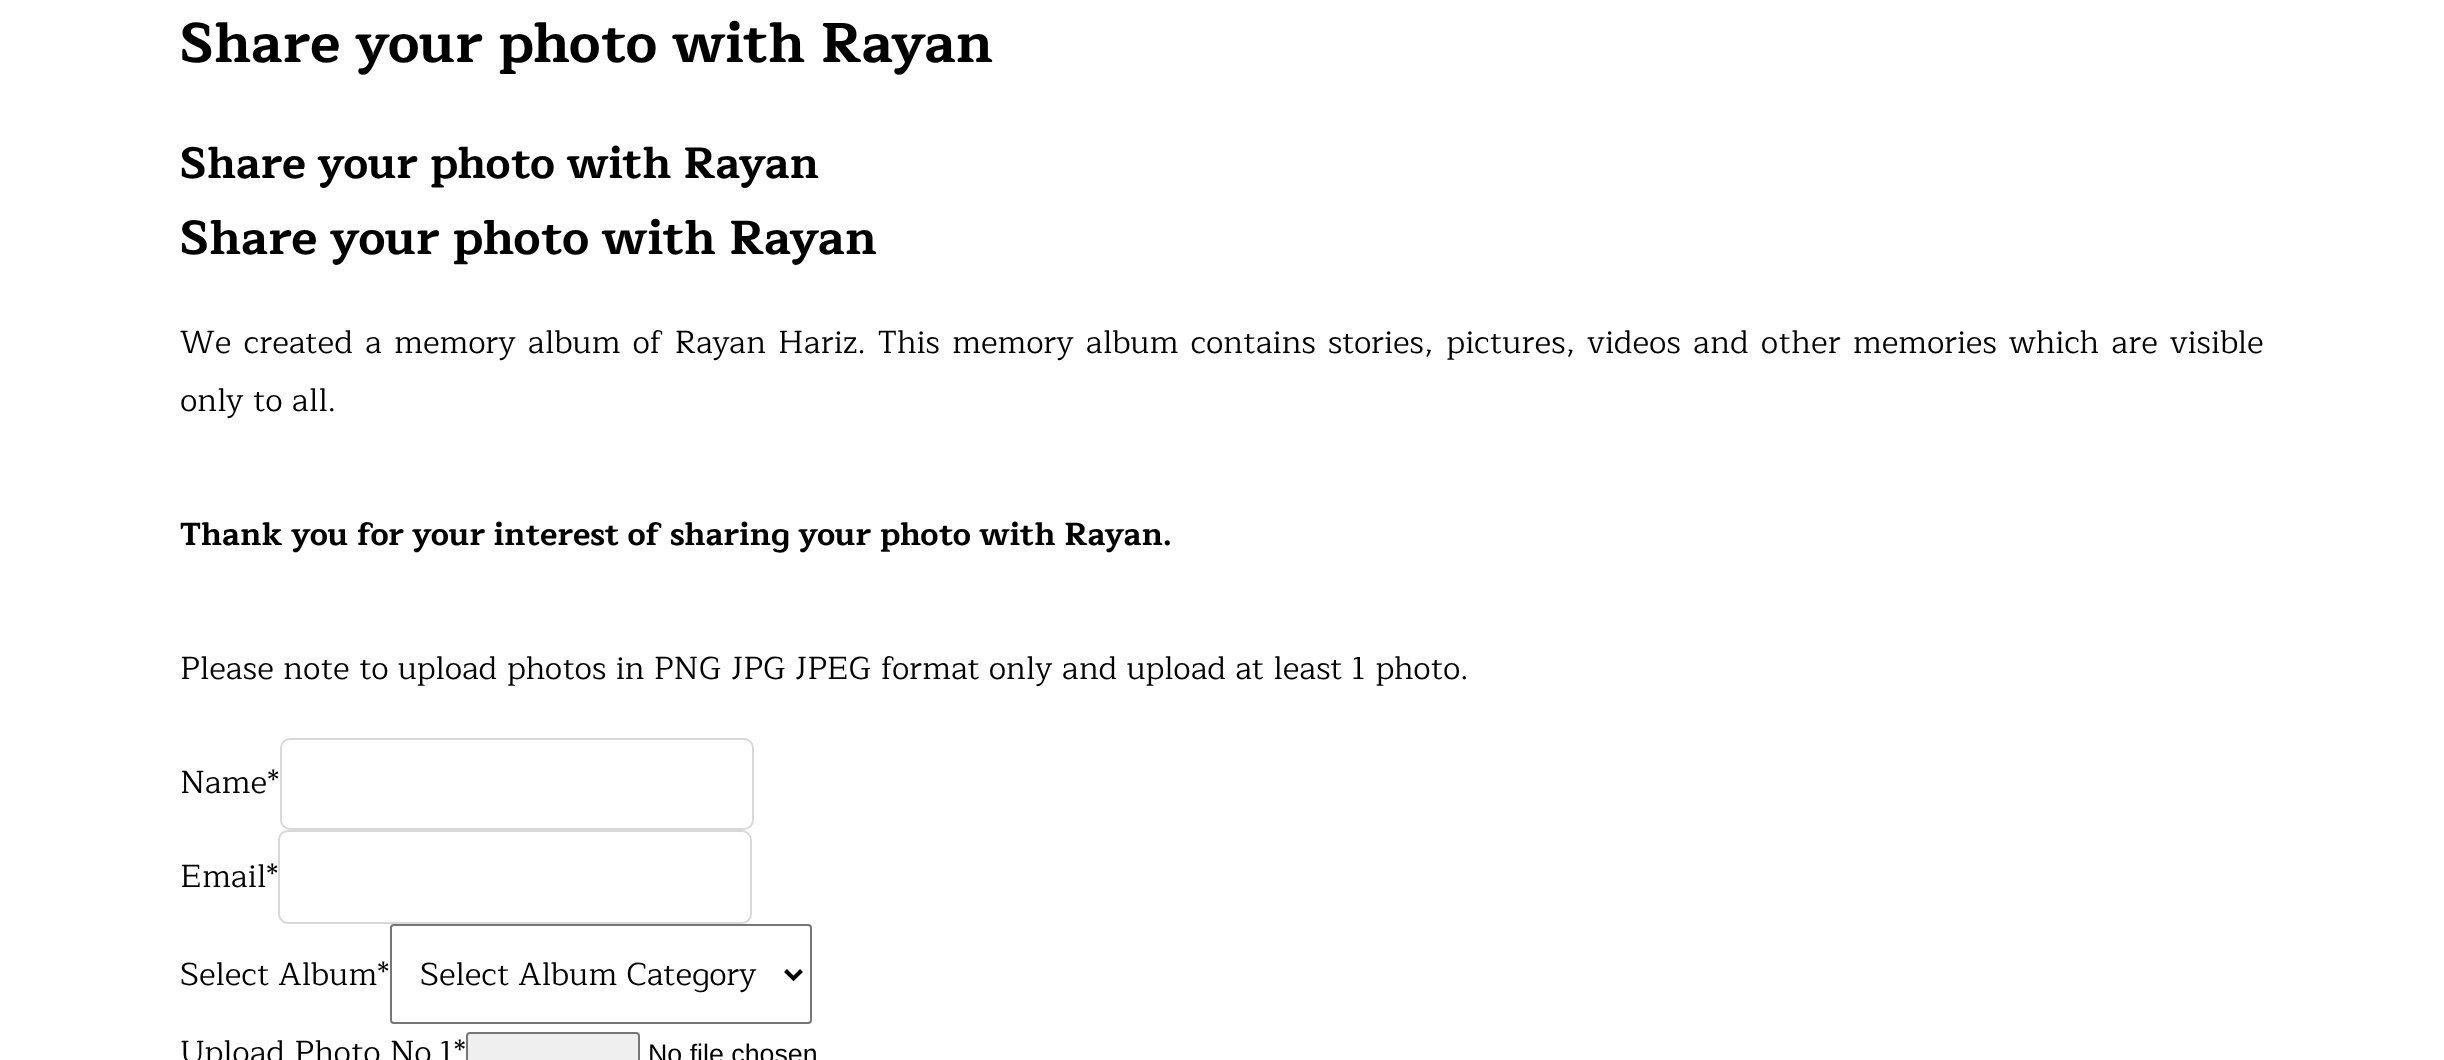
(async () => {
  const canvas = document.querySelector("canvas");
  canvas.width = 2444;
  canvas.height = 1060;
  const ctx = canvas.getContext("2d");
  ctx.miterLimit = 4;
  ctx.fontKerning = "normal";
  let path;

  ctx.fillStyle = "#ffffff";
  ctx.fillRect(0, 0, 2444, 1060);
  ctx.beginPath();
  ctx.roundRect(281, 739, 472, 90, 9);
  ctx.strokeStyle = "#d8d8d8";
  ctx.lineWidth = 2;
  ctx.stroke();
  ctx.beginPath();
  ctx.roundRect(279, 831, 472, 92, 9);
  ctx.stroke();
  ctx.beginPath();
  ctx.roundRect(391, 925, 420, 98, 3);
  ctx.strokeStyle = "#767676";
  ctx.stroke();
  path = new Path2D("M785.5 970.5L793.5 978.5L801.5 970.5");
  ctx.strokeStyle = "#000000";
  ctx.lineWidth = 4;
  ctx.stroke(path);
  ctx.fillStyle = "#efefef";
  ctx.beginPath();
  ctx.roundRect(467, 1033, 172, 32, 3);
  ctx.fill();
  ctx.strokeStyle = "#767676";
  ctx.lineWidth = 2;
  ctx.stroke();
  ctx.font = "bold 56px Maitree";
  ctx.fillStyle = "#000000";
  ctx.fillText("Share your photo with Rayan", 180, 62);
  ctx.font = "bold 44px Maitree";
  ctx.fillText("Share your photo with Rayan", 180, 178);
  ctx.font = "bold 48px Maitree";
  ctx.fillText("Share your photo with Rayan", 180, 254);
  ctx.wordSpacing = "2.9px";
  ctx.font = "32px Maitree";
  ctx.fillText("We created a memory album of Rayan Hariz. This memory album contains stories, pictures, videos and other memories which are visible", 180, 353);
  ctx.wordSpacing = "0px";
  ctx.fillText("only to all.", 180, 411);
  ctx.font = "bold 32px Maitree";
  ctx.fillText("Thank you for your interest of sharing your photo with Rayan.", 180, 545);
  ctx.font = "32px Maitree";
  for (const [text, x, y] of [
    ["Please note to upload photos in PNG JPG JPEG format only and upload at least 1 photo.", 180, 679],
    ["Name*", 180, 793],
    ["Email*", 180, 887],
    ["Select Album*", 180, 985],
    ["Select Album Category", 420, 985],
    ["Upload Photo No.1*", 180, 1063],
  ]) {
    ctx.fillText(text, x, y);
  }
  ctx.font = "26.75px Liberation Sans";
  ctx.fillText("No file chosen", 648, 1063);
})();
